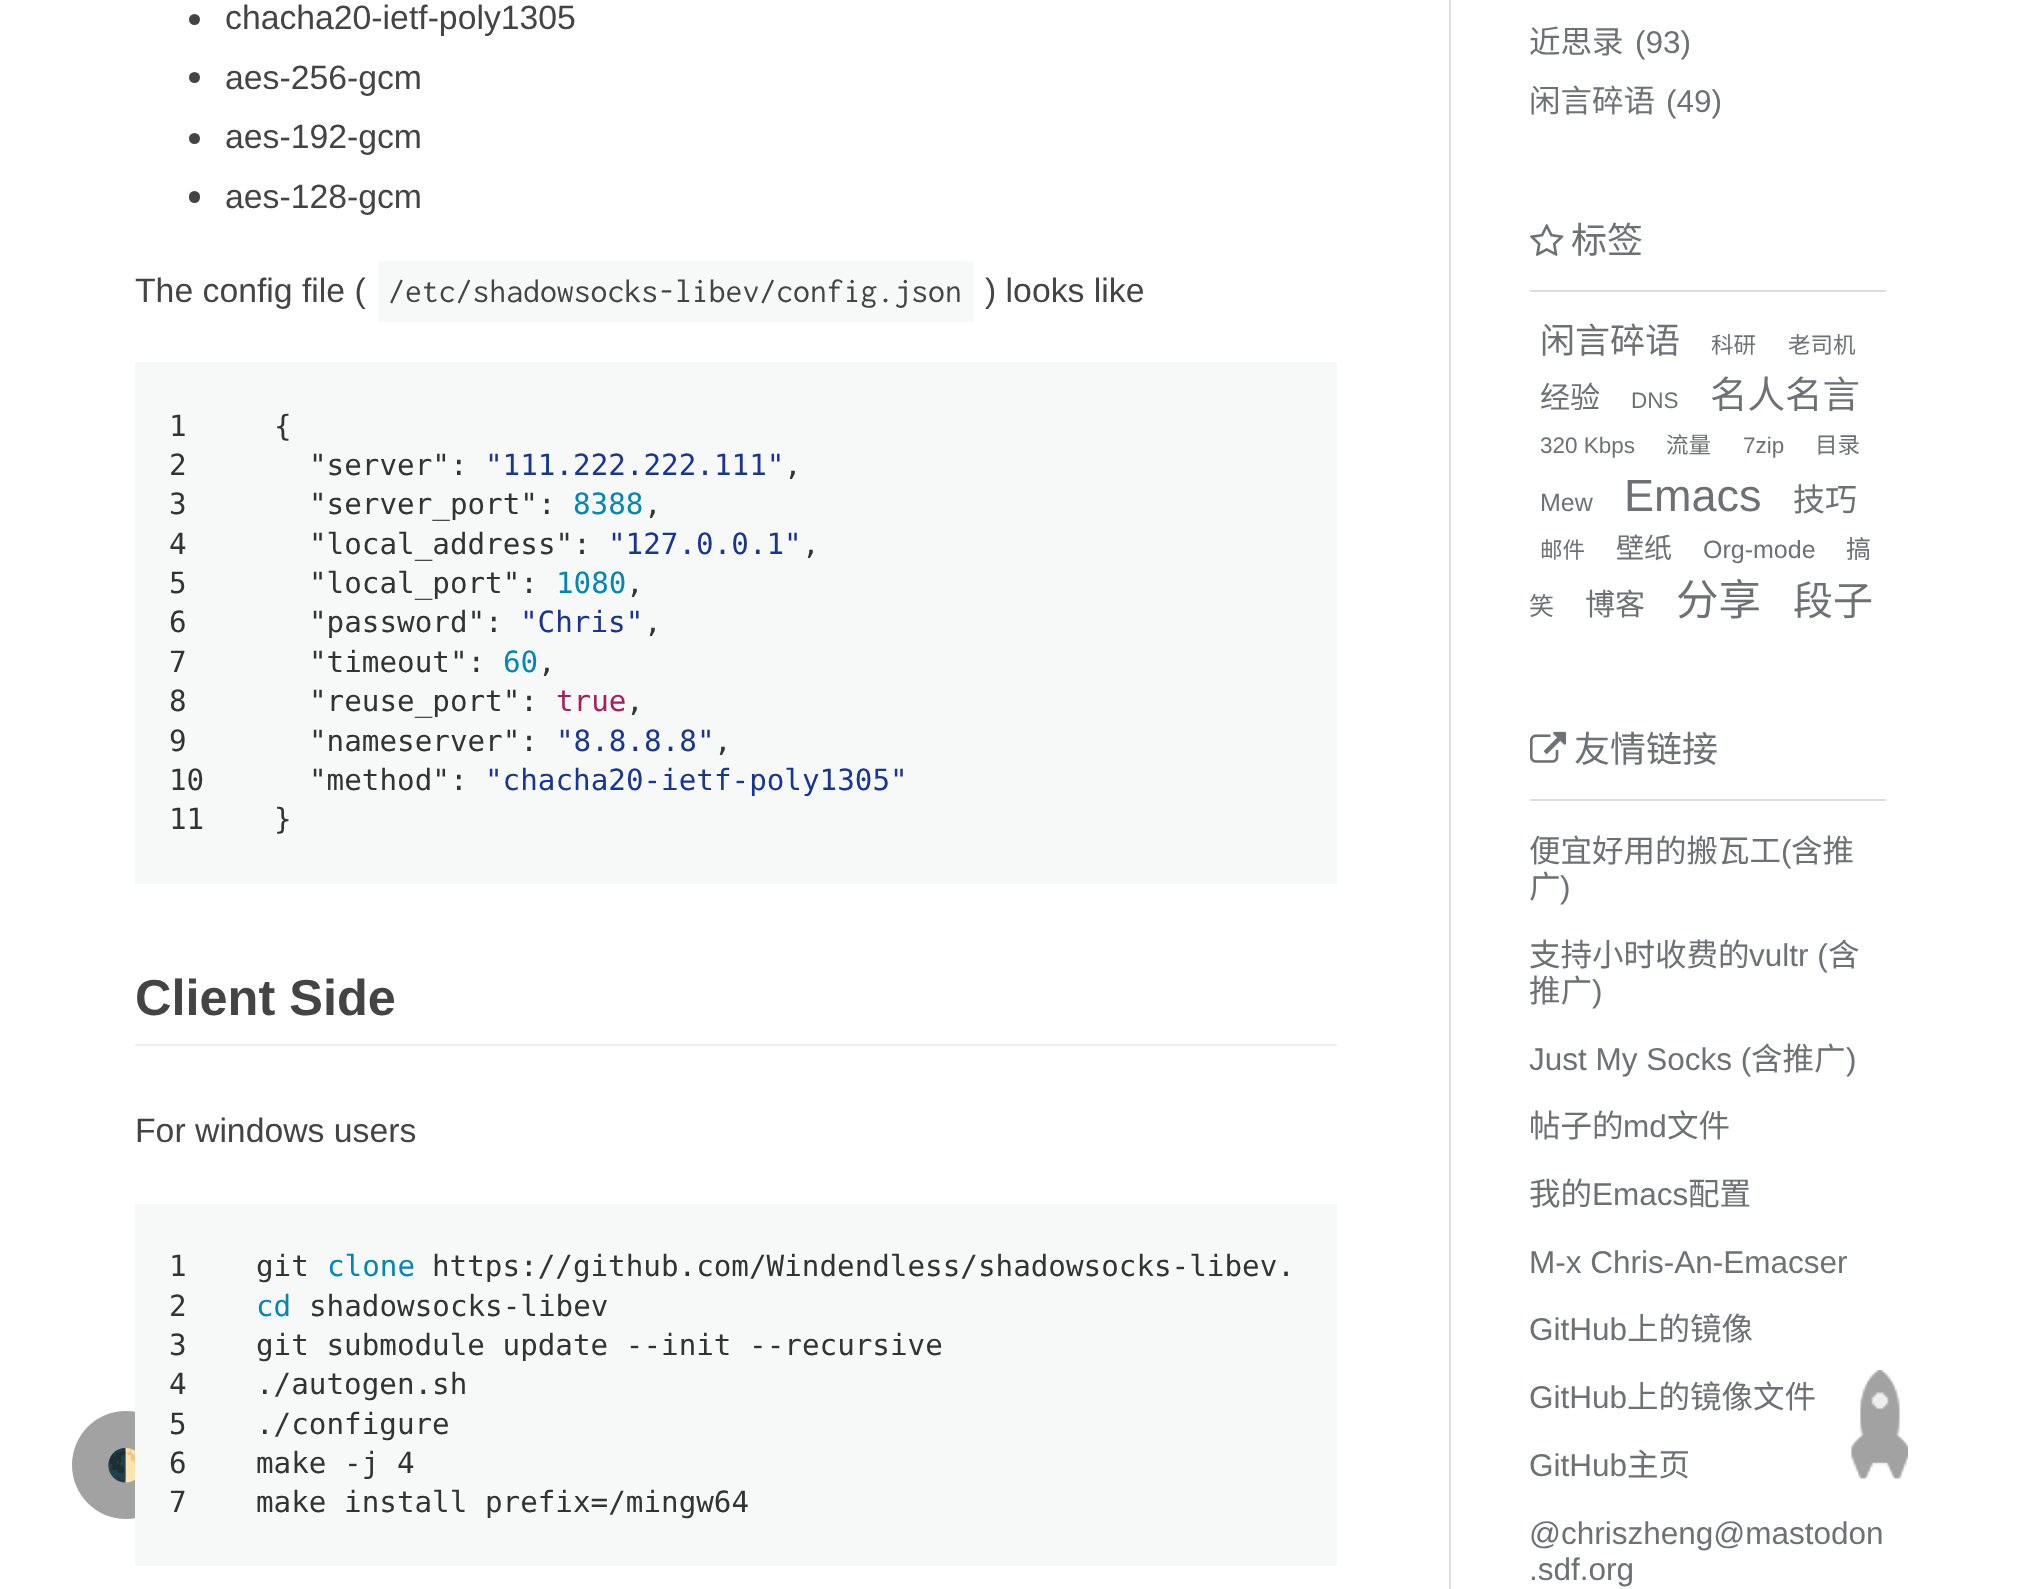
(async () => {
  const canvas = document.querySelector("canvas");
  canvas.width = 2020;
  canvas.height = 1589;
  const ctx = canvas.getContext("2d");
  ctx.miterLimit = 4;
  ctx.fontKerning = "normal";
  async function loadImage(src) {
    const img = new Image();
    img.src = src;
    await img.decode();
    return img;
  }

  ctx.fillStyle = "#ffffff";
  ctx.fillRect(0, 0, 2020, 1589);
  ctx.fillStyle = "#a2a2a2";
  ctx.beginPath();
  ctx.arc(126, 1465, 54, 0, Math.PI * 2);
  ctx.fill();
  ctx.fillStyle = "#444444";
  ctx.beginPath();
  ctx.arc(194.5, 19.5, 5.5, 0, Math.PI * 2);
  ctx.fill();
  ctx.beginPath();
  ctx.arc(194.5, 77.5, 5.5, 0, Math.PI * 2);
  ctx.fill();
  ctx.beginPath();
  ctx.arc(194.5, 138.5, 5.5, 0, Math.PI * 2);
  ctx.fill();
  ctx.beginPath();
  ctx.roundRect(189, 191, 11, 12, 5.5);
  ctx.fill();
  for (const [x, y, w, h, color] of [
    [378, 261, 596, 61, "#f7f8f8"],
    [135, 362, 1202, 522, "#f7f8f8"],
    [135, 1044, 1202, 2, "#eeeeee"],
    [1449, 0, 2, 1589, "#dddddd"],
    [1530, 290, 356, 2, "#dddddd"],
  ]) {
    ctx.fillStyle = color;
    ctx.fillRect(x, y, w, h);
  }
  ctx.drawImage(await loadImage("img/1.png"), 1530, 224, 34, 32);
  ctx.fillRect(1530, 799, 356, 2);
  ctx.drawImage(await loadImage("img/2.png"), 1530, 731, 36, 32);
  ctx.drawImage(await loadImage("img/3.png"), 1851, 1370, 57, 109);
  ctx.drawImage(await loadImage("img/4.png"), 1851, 1370, 57, 109);
  ctx.font = "31.5px Noto Color Emoji";
  ctx.fillStyle = "#444444";
  ctx.fillText("🌓", 106, 1476);
  ctx.font = "33.75px Liberation Sans";
  for (const [text, x, y] of [
    ["chacha20-ietf-poly1305", 225, 29],
    ["aes-256-gcm", 225, 89],
    ["aes-192-gcm", 225, 148],
    ["aes-128-gcm", 225, 208],
    ["The config file (", 135, 302],
  ]) {
    ctx.fillText(text, x, y);
  }
  ctx.font = "33.75px Inconsolata";
  ctx.fillText("/etc/shadowsocks-libev/config.json", 388, 302);
  ctx.font = "33.75px Liberation Sans";
  ctx.fillText(") looks like", 985, 302);
  ctx.font = "29.25px DejaVu Sans Mono";
  ctx.fillStyle = "#333333";
  for (const [text, x, y] of [
    ["1", 169, 436],
    ["2", 169, 475],
    ["3", 169, 514],
    ["4", 169, 554],
    ["5", 169, 593],
    ["6", 169, 632],
    ["7", 169, 672],
    ["8", 169, 711],
    ["9", 169, 751],
    ["10", 169, 790],
    ["11", 169, 829],
    ["{", 274, 436],
    ["\"server\":", 309, 475],
  ]) {
    ctx.fillText(text, x, y);
  }
  ctx.fillStyle = "#183691";
  ctx.fillText("\"111.222.222.111\"", 485, 475);
  ctx.fillStyle = "#333333";
  ctx.fillText(",", 784, 475);
  ctx.fillText("\"server_port\":", 309, 514);
  ctx.fillStyle = "#0086b3";
  ctx.fillText("8388", 573, 514);
  ctx.fillStyle = "#333333";
  ctx.fillText(",", 644, 514);
  ctx.fillText("\"local_address\":", 309, 554);
  ctx.fillStyle = "#183691";
  ctx.fillText("\"127.0.0.1\"", 608, 554);
  ctx.fillStyle = "#333333";
  ctx.fillText(",", 802, 554);
  ctx.fillText("\"local_port\":", 309, 593);
  ctx.fillStyle = "#0086b3";
  ctx.fillText("1080", 556, 593);
  ctx.fillStyle = "#333333";
  ctx.fillText(",", 626, 593);
  ctx.fillText("\"password\":", 309, 632);
  ctx.fillStyle = "#183691";
  ctx.fillText("\"Chris\"", 520, 632);
  ctx.fillStyle = "#333333";
  ctx.fillText(",", 644, 632);
  ctx.fillText("\"timeout\":", 309, 672);
  ctx.fillStyle = "#0086b3";
  ctx.fillText("60", 503, 672);
  ctx.fillStyle = "#333333";
  ctx.fillText(",", 538, 672);
  ctx.fillText("\"reuse_port\":", 309, 711);
  ctx.fillStyle = "#a71d5d";
  ctx.fillText("true", 556, 711);
  ctx.fillStyle = "#333333";
  ctx.fillText(",", 626, 711);
  ctx.fillText("\"nameserver\":", 309, 751);
  ctx.fillStyle = "#183691";
  ctx.fillText("\"8.8.8.8\"", 556, 751);
  ctx.fillStyle = "#333333";
  ctx.fillText(",", 714, 751);
  ctx.fillText("\"method\":", 309, 790);
  ctx.fillStyle = "#183691";
  ctx.fillText("\"chacha20-ietf-poly1305\"", 485, 790);
  ctx.fillStyle = "#333333";
  ctx.fillText("}", 274, 829);
  ctx.font = "bold 50.5px Liberation Sans";
  ctx.fillStyle = "#444444";
  ctx.fillText("Client Side", 135, 1015);
  ctx.font = "33.75px Liberation Sans";
  ctx.fillText("For windows users", 135, 1142);
  ctx.fillStyle = "#f7f8f8";
  ctx.fillRect(135, 1204, 1202, 362);
  ctx.font = "29.25px DejaVu Sans Mono";
  ctx.fillStyle = "#333333";
  for (const [text, x, y] of [
    ["1", 169, 1276],
    ["2", 169, 1316],
    ["3", 169, 1355],
    ["4", 169, 1394],
    ["5", 169, 1434],
    ["6", 169, 1473],
    ["7", 169, 1512],
    ["git", 256, 1276],
  ]) {
    ctx.fillText(text, x, y);
  }
  ctx.fillStyle = "#0086b3";
  ctx.fillText("clone", 327, 1276);
  ctx.fillStyle = "#333333";
  ctx.fillText("https://github.com/Windendless/shadowsocks-libev.", 432, 1276);
  ctx.fillStyle = "#0086b3";
  ctx.fillText("cd", 256, 1316);
  ctx.fillStyle = "#333333";
  for (const [text, x, y] of [
    ["shadowsocks-libev", 309, 1316],
    ["git submodule update --init --recursive", 256, 1355],
    ["./autogen.sh", 256, 1394],
    ["./configure", 256, 1434],
    ["make -j 4", 256, 1473],
    ["make install prefix=/mingw64", 256, 1512],
  ]) {
    ctx.fillText(text, x, y);
  }
  ctx.font = "31.5px Noto Sans CJK SC";
  ctx.fillStyle = "#6e7173";
  ctx.fillText("近思录", 1529, 53);
  ctx.font = "31.5px Liberation Sans";
  ctx.fillText("(93)", 1635, 53);
  ctx.font = "31.5px Noto Sans CJK SC";
  ctx.fillText("闲言碎语", 1529, 112);
  ctx.font = "31.5px Liberation Sans";
  ctx.fillText("(49)", 1666, 112);
  ctx.font = "36px Noto Sans CJK SC";
  ctx.fillText("标签", 1571, 253);
  ctx.font = "35px Noto Sans CJK SC";
  ctx.fillText("闲言碎语", 1540, 353);
  ctx.font = "22.5px Noto Sans CJK SC";
  ctx.fillText("科研", 1711, 353);
  ctx.fillText("老司机", 1788, 353);
  ctx.font = "30px Noto Sans CJK SC";
  ctx.fillText("经验", 1540, 408);
  ctx.font = "22.5px Liberation Sans";
  ctx.fillText("DNS", 1631, 408);
  ctx.font = "37.5px Noto Sans CJK SC";
  ctx.fillText("名人名言", 1710, 408);
  ctx.font = "22.5px Liberation Sans";
  ctx.fillText("320 Kbps", 1540, 453);
  ctx.font = "22.5px Noto Sans CJK SC";
  ctx.fillText("流量", 1666, 453);
  ctx.font = "22.5px Liberation Sans";
  ctx.fillText("7zip", 1743, 453);
  ctx.font = "22.5px Noto Sans CJK SC";
  ctx.fillText("目录", 1815, 453);
  ctx.font = "25px Liberation Sans";
  ctx.fillText("Mew", 1540, 511);
  ctx.font = "45px Liberation Sans";
  ctx.fillText("Emacs", 1624, 511);
  ctx.font = "32px Noto Sans CJK SC";
  ctx.fillText("技巧", 1793, 511);
  ctx.font = "22.5px Noto Sans CJK SC";
  ctx.fillText("邮件", 1540, 558);
  ctx.font = "28px Noto Sans CJK SC";
  ctx.fillText("壁纸", 1616, 558);
  ctx.font = "25px Liberation Sans";
  ctx.fillText("Org-mode", 1703, 558);
  ctx.font = "25px Noto Sans CJK SC";
  ctx.fillText("搞", 1846, 558);
  ctx.fillText("笑", 1529, 615);
  ctx.font = "30px Noto Sans CJK SC";
  ctx.fillText("博客", 1585, 615);
  ctx.font = "42.5px Noto Sans CJK SC";
  ctx.fillText("分享", 1676, 615);
  ctx.font = "40px Noto Sans CJK SC";
  ctx.fillText("段子", 1793, 615);
  ctx.font = "36px Noto Sans CJK SC";
  ctx.fillText("友情链接", 1574, 762);
  ctx.font = "31.5px Noto Sans CJK SC";
  ctx.fillText("便宜好用的搬瓦工", 1529, 862);
  ctx.font = "31.5px Liberation Sans";
  ctx.fillText("(", 1781, 862);
  ctx.font = "31.5px Noto Sans CJK SC";
  ctx.fillText("含推", 1791, 862);
  ctx.fillText("广", 1529, 898);
  ctx.font = "31.5px Liberation Sans";
  ctx.fillText(")", 1560, 898);
  ctx.font = "31.5px Noto Sans CJK SC";
  ctx.fillText("支持小时收费的", 1529, 966);
  ctx.font = "31.5px Liberation Sans";
  ctx.fillText("vultr (", 1749, 966);
  ctx.font = "31.5px Noto Sans CJK SC";
  ctx.fillText("含", 1828, 966);
  ctx.fillText("推广", 1529, 1002);
  ctx.font = "31.5px Liberation Sans";
  ctx.fillText(")", 1592, 1002);
  ctx.fillText("Just My Socks (", 1529, 1070);
  ctx.font = "31.5px Noto Sans CJK SC";
  ctx.fillText("含推广", 1751, 1070);
  ctx.font = "31.5px Liberation Sans";
  ctx.fillText(")", 1846, 1070);
  ctx.font = "31.5px Noto Sans CJK SC";
  ctx.fillText("帖子的", 1529, 1137);
  ctx.font = "31.5px Liberation Sans";
  ctx.fillText("md", 1623, 1137);
  ctx.font = "31.5px Noto Sans CJK SC";
  ctx.fillText("文件", 1667, 1137);
  ctx.fillText("我的", 1529, 1205);
  ctx.font = "31.5px Liberation Sans";
  ctx.fillText("Emacs", 1592, 1205);
  ctx.font = "31.5px Noto Sans CJK SC";
  ctx.fillText("配置", 1688, 1205);
  ctx.font = "31.5px Liberation Sans";
  ctx.fillText("M-x Chris-An-Emacser", 1529, 1273);
  ctx.fillText("GitHub", 1529, 1340);
  ctx.font = "31.5px Noto Sans CJK SC";
  ctx.fillText("上的镜像", 1627, 1340);
  ctx.font = "31.5px Liberation Sans";
  ctx.fillText("GitHub", 1529, 1408);
  ctx.font = "31.5px Noto Sans CJK SC";
  ctx.fillText("上的镜像文件", 1627, 1408);
  ctx.font = "31.5px Liberation Sans";
  ctx.fillText("GitHub", 1529, 1476);
  ctx.font = "31.5px Noto Sans CJK SC";
  ctx.fillText("主页", 1627, 1476);
  ctx.font = "31.5px Liberation Sans";
  ctx.fillText("@chriszheng@mastodon", 1529, 1544);
  ctx.fillText(".sdf.org", 1529, 1580);
})();
